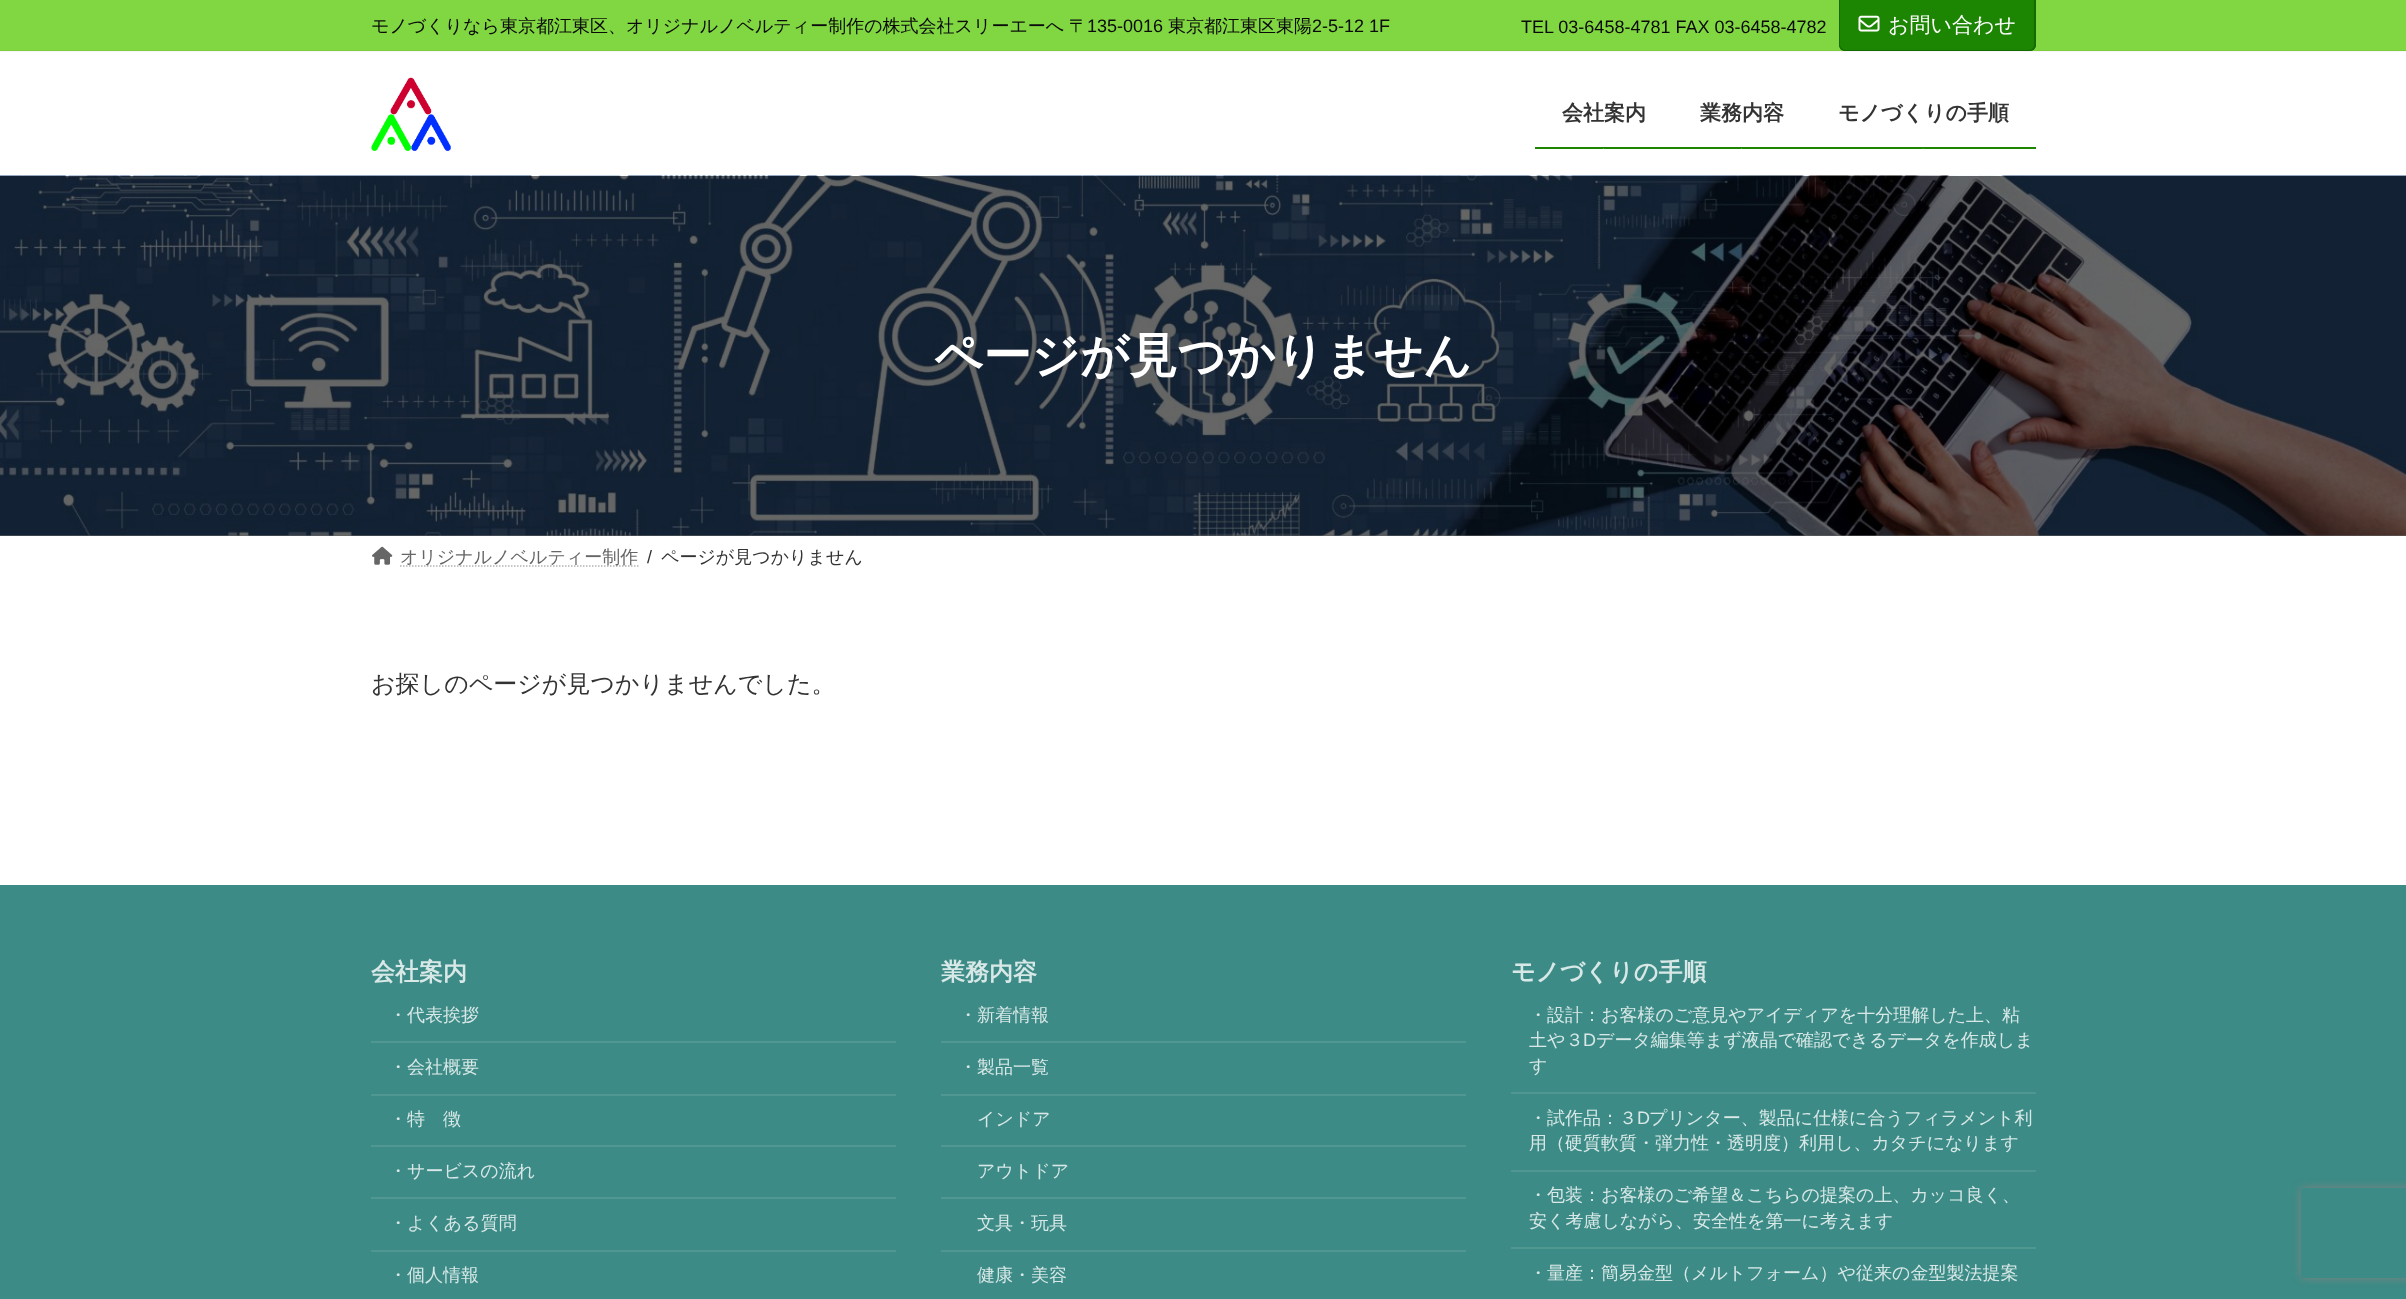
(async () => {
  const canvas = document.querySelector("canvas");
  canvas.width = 2406;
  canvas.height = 1299;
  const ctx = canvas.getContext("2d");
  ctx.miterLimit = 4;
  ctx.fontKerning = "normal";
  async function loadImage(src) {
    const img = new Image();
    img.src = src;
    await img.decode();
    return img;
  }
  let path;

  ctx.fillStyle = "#ffffff";
  ctx.fillRect(0, 0, 2406, 1299);
  for (const [x, y, w, h, color] of [
    [0, 51, 2406, 1, "#f5f5f5"],
    [0, 535, 2406, 1, "#666666"],
    [0, 0, 2406, 50, "#81d742"],
    [0, 50, 2406, 1, "#7cce3f"],
  ]) {
    ctx.fillStyle = color;
    ctx.fillRect(x, y, w, h);
  }
  ctx.fillStyle = "#1c8502";
  ctx.beginPath();
  ctx.roundRect(1839, 0, 197, 51, [0, 0, 6, 6]);
  ctx.fill();
  ctx.fillStyle = "#166a02";
  path = new Path2D("M1839 0H2036V45C2036 48 2033 51 2030 51H1845C1842 51 1839 48 1839 45ZM1840 0H2034V45C2034 47 2032 50 2030 50H1845C1843 50 1840 47 1840 45Z");
  ctx.fill(path, "evenodd");
  ctx.drawImage(await loadImage("img/1.png"), 1858, 15, 22, 17);
  ctx.drawImage(await loadImage("img/2.png"), 371, 77, 80, 74);
  ctx.fillStyle = "#1c8502";
  ctx.fillRect(1535, 147, 501, 2);
  ctx.fillStyle = "#ffffff";
  path = new Path2D("M1618.5 163.5H1588.5L1603.5 148.5Z");
  ctx.fill(path);
  path = new Path2D("M1756.5 163.5H1726.5L1741.5 148.5Z");
  ctx.fill(path);
  path = new Path2D("M1938 163.5H1908L1923 148.5Z");
  ctx.fill(path);
  ctx.drawImage(await loadImage("img/3.png"), 0, 175, 2406, 361);
  ctx.drawImage(await loadImage("img/4.png"), 372, 546, 21, 19);
  path = new Path2D("M400 566H638.5");
  ctx.strokeStyle = "#b3b3b3";
  ctx.lineWidth = 1.5;
  ctx.setLineDash([1.5, 1.5]);
  ctx.stroke(path);
  for (const [x, y, w, h, color] of [
    [0, 885, 2406, 414, "#3c8b86"],
    [371, 1041, 525, 2, "#509792"],
    [371, 1094, 525, 2, "#509792"],
    [371, 1145, 525, 2, "#509792"],
    [371, 1197, 525, 2, "#509792"],
    [371, 1250, 525, 2, "#509792"],
    [941, 1041, 525, 2, "#509792"],
    [941, 1094, 525, 2, "#509792"],
    [941, 1145, 525, 2, "#509792"],
    [941, 1197, 525, 2, "#509792"],
    [941, 1250, 525, 2, "#509792"],
    [1511, 1092, 525, 2, "#509792"],
    [1511, 1170, 525, 2, "#509792"],
    [1511, 1247, 525, 2, "#509792"],
  ]) {
    ctx.fillStyle = color;
    ctx.fillRect(x, y, w, h);
  }
  ctx.save();
  path = new Path2D("M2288 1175H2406V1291H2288ZM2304 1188H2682C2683.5 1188 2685 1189.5 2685 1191V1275C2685 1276.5 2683.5 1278 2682 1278H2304C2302.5 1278 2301 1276.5 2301 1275V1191C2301 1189.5 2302.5 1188 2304 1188Z");
  ctx.clip(path, "evenodd");
  ctx.fillStyle = "#808080";
  ctx.filter = "blur(4px)";
  ctx.beginPath();
  ctx.roundRect(2301, 1188, 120, 90, 3);
  ctx.fill();
  ctx.filter = "none";
  ctx.restore();
  ctx.font = "500 18px WenQuanYi Zen Hei";
  ctx.fillStyle = "#0a0a0a";
  ctx.fillText("モノづくりなら東京都江東区、オリジナルノベルティー制作の株式会社スリーエーへ", 371, 32);
  ctx.fillText("〒", 1069, 32);
  ctx.font = "18px Liberation Sans";
  ctx.fillText("135-0016", 1087, 32);
  ctx.font = "500 18px WenQuanYi Zen Hei";
  ctx.fillText("東京都江東区東陽", 1168, 32);
  ctx.font = "18px Liberation Sans";
  ctx.fillText("2-5-12 1F", 1312, 32);
  ctx.fillText("TEL 03-6458-4781 FAX 03-6458-4782", 1521, 33);
  ctx.font = "500 21px WenQuanYi Zen Hei";
  ctx.fillStyle = "#ffffff";
  ctx.fillText("お問い合わせ", 1888, 32);
  ctx.font = "bold 21px WenQuanYi Zen Hei";
  ctx.fillStyle = "#333333";
  for (const [text, x, y] of [
    ["会社案内", 1562, 120],
    ["業務内容", 1700, 120],
    ["モノづくりの手順", 1838, 120],
  ]) {
    ctx.fillText(text, x, y);
  }
  ctx.font = "bold 48px WenQuanYi Zen Hei";
  ctx.fillStyle = "#ffffff";
  ctx.fillText("ページが見つかりません", 934, 372);
  ctx.font = "500 18px WenQuanYi Zen Hei";
  ctx.fillStyle = "#666666";
  ctx.fillText("オリジナルノベルティー制作", 400, 563);
  ctx.font = "18px Liberation Sans";
  ctx.fillStyle = "#333333";
  ctx.fillText("/", 647, 563);
  ctx.font = "500 18px WenQuanYi Zen Hei";
  ctx.fillText("ページが見つかりません", 661, 563);
  ctx.font = "500 24px WenQuanYi Zen Hei";
  ctx.fillText("お探しのページが見つかりませんでした。", 371, 692);
  ctx.font = "bold 24px WenQuanYi Zen Hei";
  ctx.fillStyle = "#d8e8e7";
  ctx.fillText("会社案内", 371, 980);
  ctx.font = "500 18px WenQuanYi Zen Hei";
  for (const [text, x, y] of [
    ["・代表挨拶", 389, 1021],
    ["・会社概要", 389, 1073],
    ["・特　徴", 389, 1125],
    ["・サービスの流れ", 389, 1177],
    ["・よくある質問", 389, 1229],
    ["・個人情報", 389, 1281],
  ]) {
    ctx.fillText(text, x, y);
  }
  ctx.font = "bold 24px WenQuanYi Zen Hei";
  ctx.fillText("業務内容", 941, 980);
  ctx.font = "500 18px WenQuanYi Zen Hei";
  for (const [text, x, y] of [
    ["・新着情報", 959, 1021],
    ["・製品一覧", 959, 1073],
    ["インドア", 977, 1125],
    ["アウトドア", 977, 1177],
    ["文具・玩具", 977, 1229],
    ["健康・美容", 977, 1281],
  ]) {
    ctx.fillText(text, x, y);
  }
  ctx.font = "bold 24px WenQuanYi Zen Hei";
  ctx.fillText("モノづくりの手順", 1511, 980);
  ctx.font = "500 18px WenQuanYi Zen Hei";
  ctx.fillText("・設計：お客様のご意見やアイディアを十分理解した上、粘", 1529, 1021);
  ctx.fillText("土や３", 1529, 1046);
  ctx.font = "18px Liberation Sans";
  ctx.fillText("D", 1583, 1046);
  ctx.font = "500 18px WenQuanYi Zen Hei";
  for (const [text, x, y] of [
    ["データ編集等まず液晶で確認できるデータを作成しま", 1596, 1046],
    ["す", 1529, 1072],
    ["・試作品：３", 1529, 1124],
  ]) {
    ctx.fillText(text, x, y);
  }
  ctx.font = "18px Liberation Sans";
  ctx.fillText("D", 1637, 1124);
  ctx.font = "500 18px WenQuanYi Zen Hei";
  for (const [text, x, y] of [
    ["プリンター、製品に仕様に合うフィラメント利", 1649, 1124],
    ["用（硬質軟質・弾力性・透明度）利用し、カタチになります", 1529, 1149],
    ["・包装：お客様のご希望＆こちらの提案の上、カッコ良く、", 1529, 1201],
    ["安く考慮しながら、安全性を第一に考えます", 1529, 1227],
    ["・量産：簡易金型（メルトフォーム）や従来の金型製法提案", 1529, 1279],
  ]) {
    ctx.fillText(text, x, y);
  }
})();
